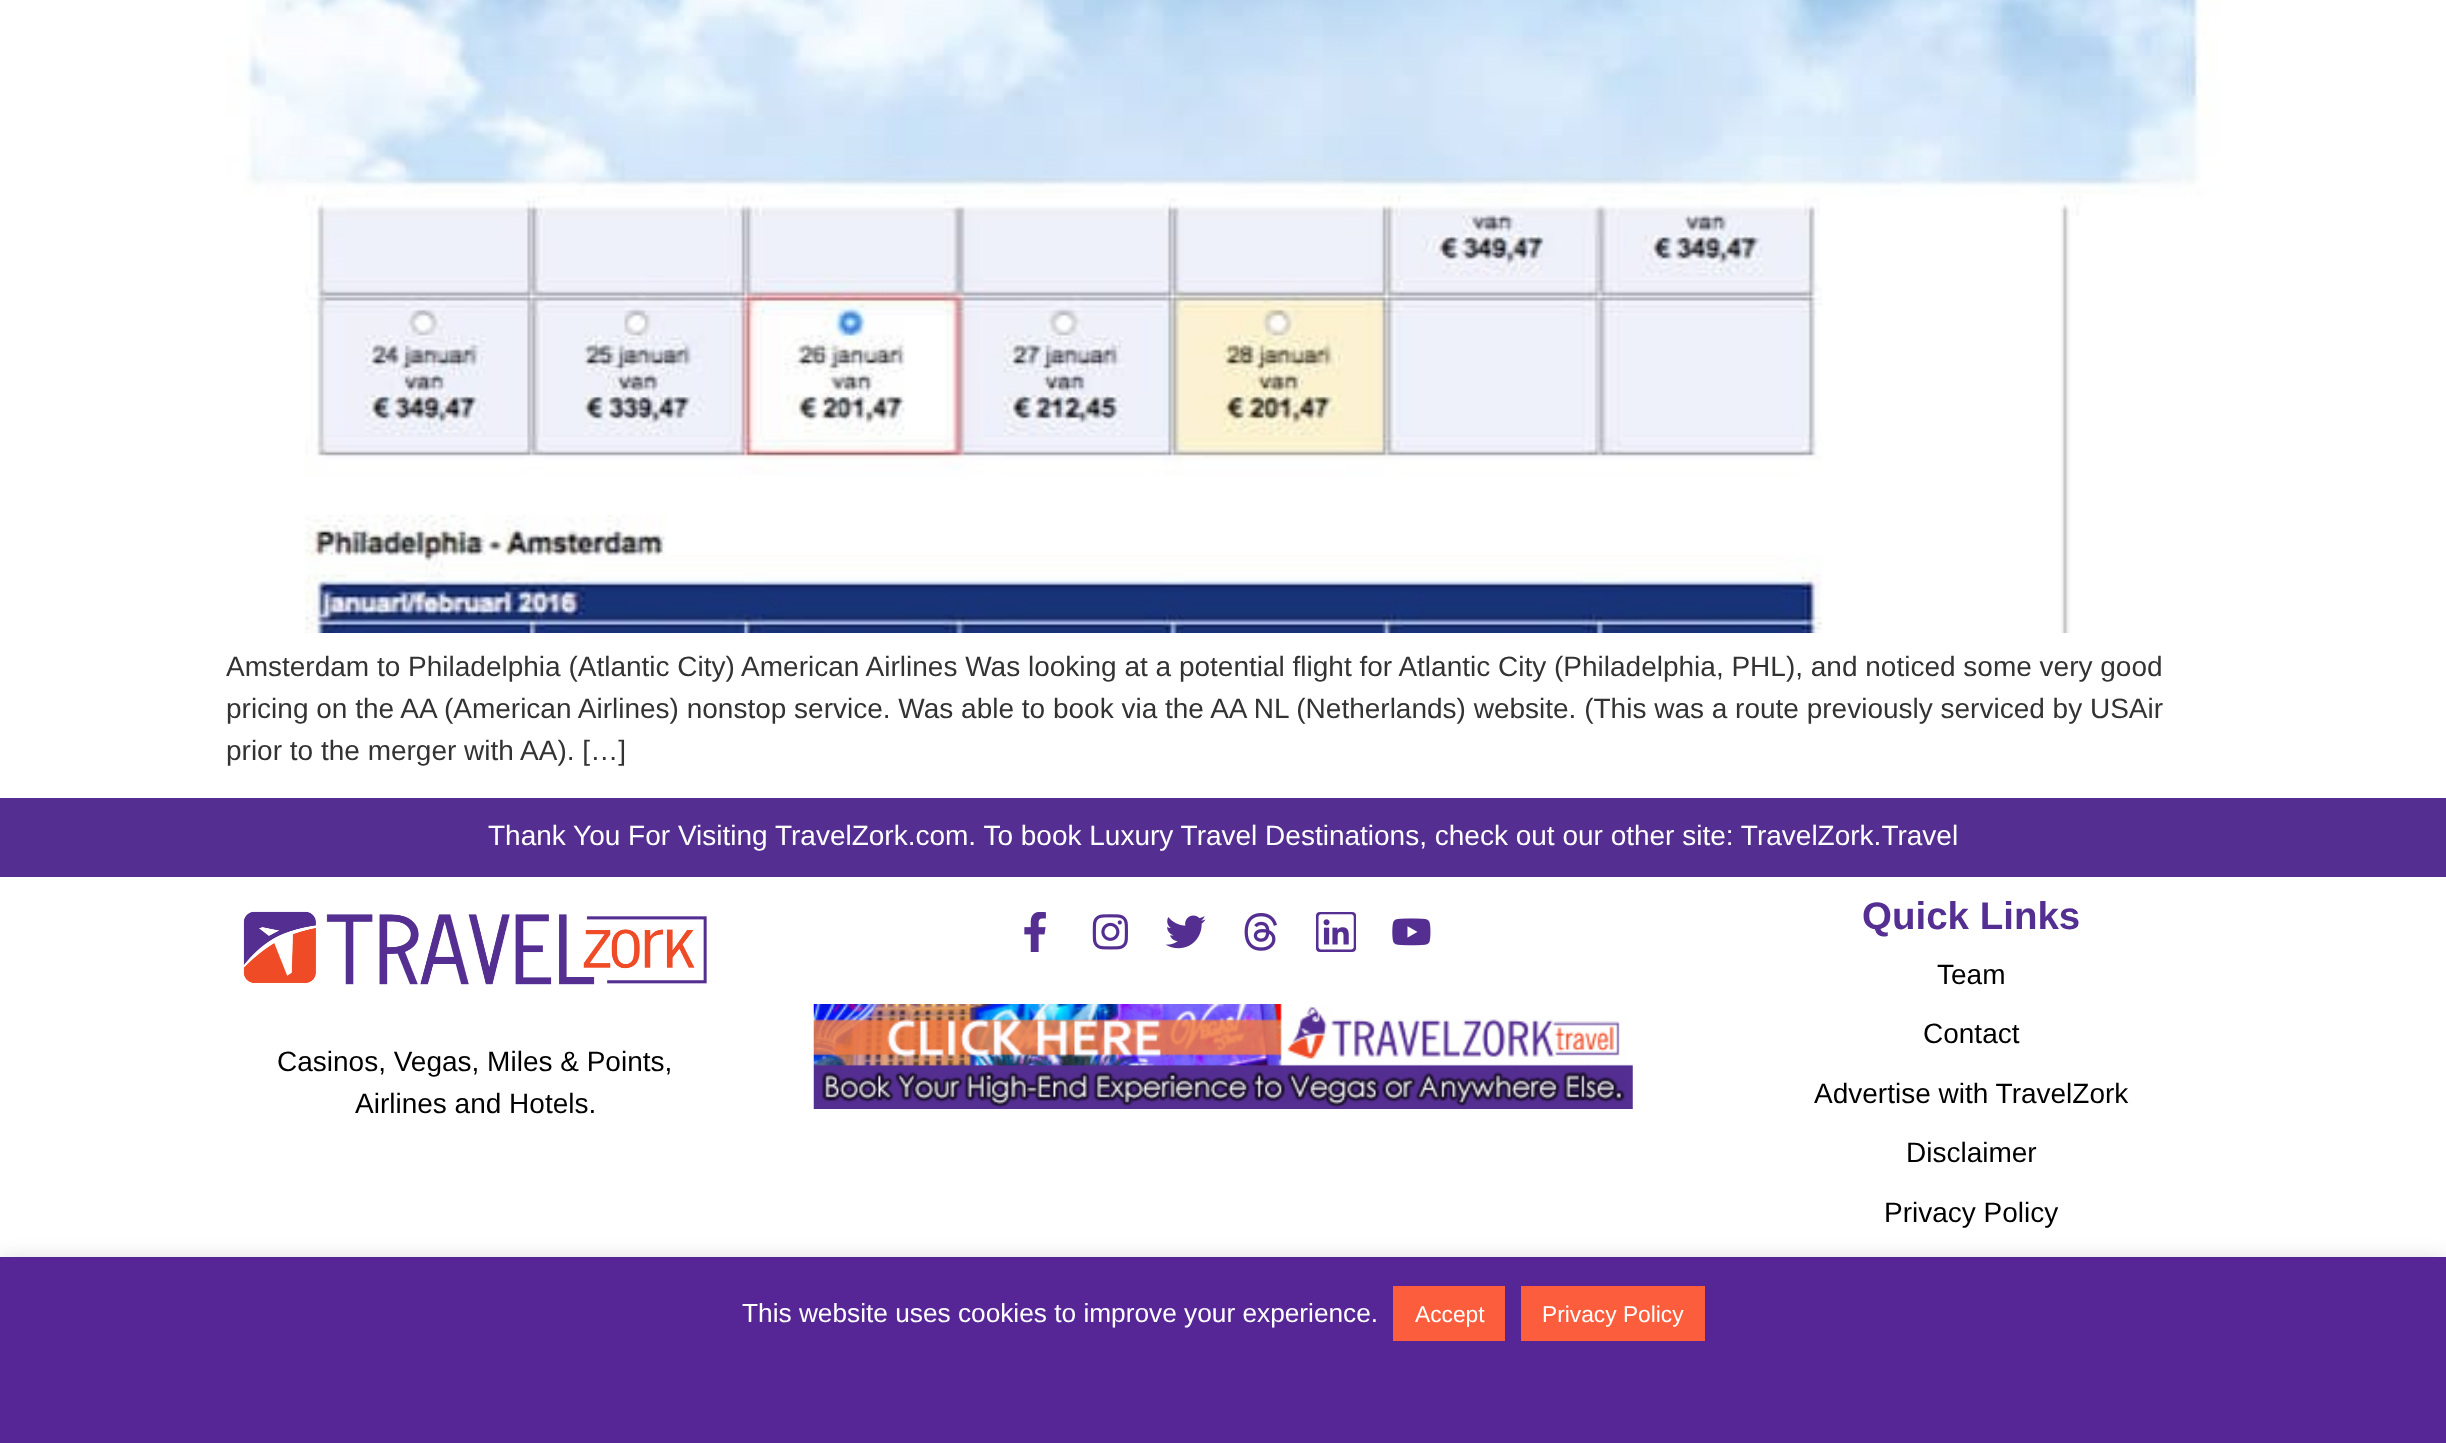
(async () => {
  const canvas = document.querySelector("canvas");
  canvas.width = 2446;
  canvas.height = 1443;
  const ctx = canvas.getContext("2d");
  ctx.miterLimit = 4;
  ctx.fontKerning = "normal";
  async function loadImage(src) {
    const img = new Image();
    img.src = src;
    await img.decode();
    return img;
  }

  ctx.fillStyle = "#ffffff";
  ctx.fillRect(0, 0, 2446, 1443);
  ctx.drawImage(await loadImage("img/1.png"), 226, 0, 1994, 633);
  ctx.fillStyle = "#542e91";
  ctx.fillRect(0, 798, 2446, 79);
  ctx.drawImage(await loadImage("img/2.png"), 243, 911, 464, 74);
  ctx.drawImage(await loadImage("img/3.png"), 1024, 912, 22, 40);
  ctx.drawImage(await loadImage("img/4.png"), 1092, 914, 36, 36);
  ctx.drawImage(await loadImage("img/5.png"), 1166, 915, 40, 34);
  ctx.drawImage(await loadImage("img/6.png"), 1244, 913, 33, 38);
  ctx.beginPath();
  ctx.roundRect(1316, 912, 40, 40, 4);
  ctx.fill();
  ctx.drawImage(await loadImage("img/7.png"), 1318, 914, 36, 36);
  ctx.drawImage(await loadImage("img/8.png"), 1392, 918, 39, 28);
  ctx.drawImage(await loadImage("img/9.png"), 813, 1004, 820, 105);
  ctx.fillStyle = "rgba(172, 171, 171, 0.3)";
  ctx.filter = "blur(9px)";
  ctx.beginPath();
  ctx.rect(0, 1255, 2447, 187);
  ctx.fill();
  ctx.filter = "none";
  for (const [x, y, w, h, color] of [
    [0, 1257, 2446, 186, "#562697"],
    [1393, 1286, 112, 55, "#fc5e3d"],
    [1521, 1286, 184, 55, "#fc5e3d"],
  ]) {
    ctx.fillStyle = color;
    ctx.fillRect(x, y, w, h);
  }
  ctx.font = "28px Liberation Sans";
  ctx.fillStyle = "#333333";
  for (const [text, x, y] of [
    ["Amsterdam to Philadelphia (Atlantic City) American Airlines Was looking at a potential flight for Atlantic City (Philadelphia, PHL), and noticed some very good", 226, 676],
    ["pricing on the AA (American Airlines) nonstop service. Was able to book via the AA NL (Netherlands) website. (This was a route previously serviced by USAir", 226, 718],
    ["prior to the merger with AA). […]", 226, 760],
  ]) {
    ctx.fillText(text, x, y);
  }
  ctx.fillStyle = "#ffffff";
  ctx.fillText("Thank You For Visiting TravelZork.com. To book Luxury Travel Destinations, check out our other site: TravelZork.Travel", 488, 845);
  ctx.fillStyle = "#000000";
  ctx.fillText("Casinos, Vegas, Miles & Points,", 277, 1071);
  ctx.fillText("Airlines and Hotels.", 355, 1113);
  ctx.font = "bold 38.5px Liberation Sans";
  ctx.fillStyle = "#542e91";
  ctx.fillText("Quick Links", 1862, 929);
  ctx.font = "28px Liberation Sans";
  ctx.fillStyle = "#000000";
  for (const [text, x, y] of [
    ["Team", 1937, 984],
    ["Contact", 1923, 1043],
    ["Advertise with TravelZork", 1814, 1103],
    ["Disclaimer", 1906, 1162],
    ["Privacy Policy", 1884, 1222],
  ]) {
    ctx.fillText(text, x, y);
  }
  ctx.font = "26.25px Liberation Sans";
  ctx.fillStyle = "#ffffff";
  ctx.fillText("This website uses cookies to improve your experience.", 742, 1322);
  ctx.font = "22.75px Liberation Sans";
  ctx.fillText("Accept", 1415, 1322);
  ctx.fillText("Privacy Policy", 1542, 1322);
})();
